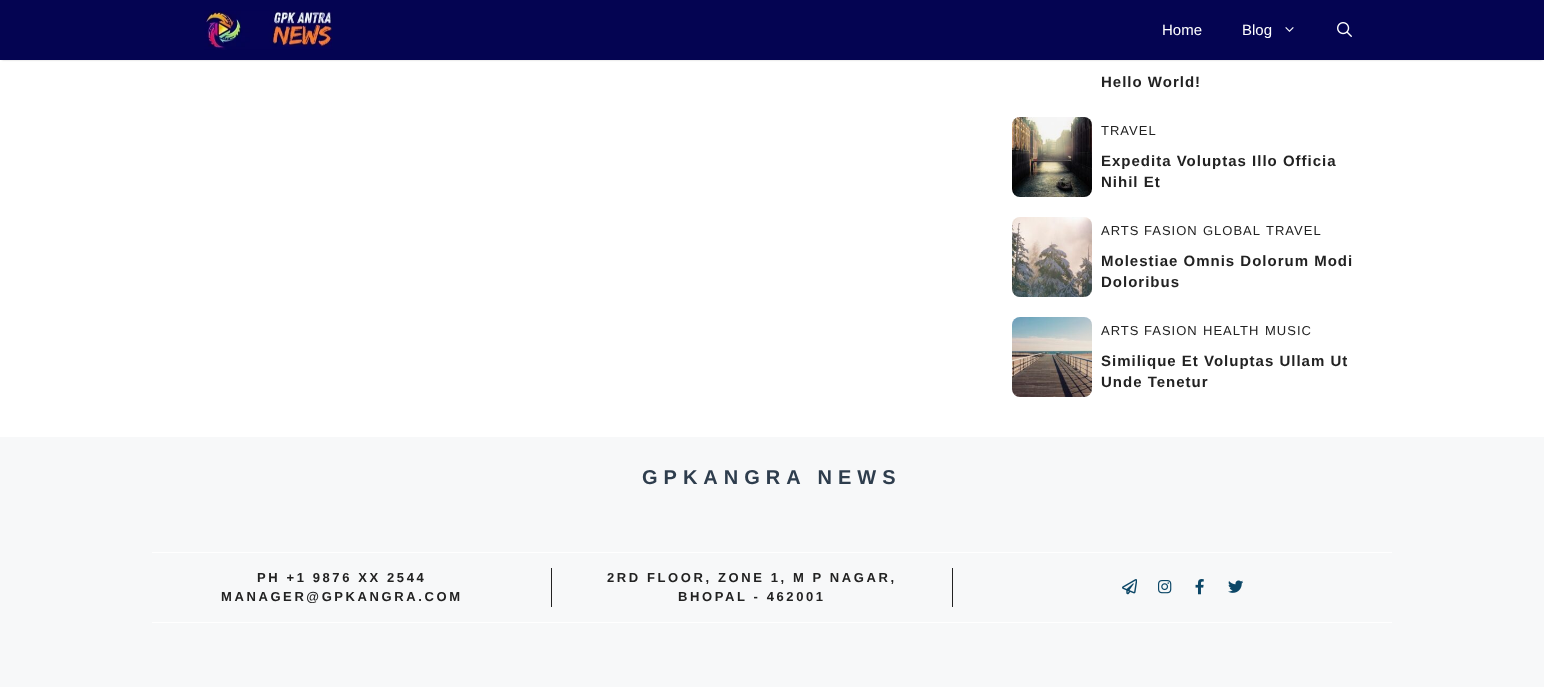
(async () => {
  const canvas = document.querySelector("canvas");
  canvas.width = 1544;
  canvas.height = 687;
  const ctx = canvas.getContext("2d");
  ctx.miterLimit = 4;
  ctx.fontKerning = "normal";
  async function loadImage(src) {
    const img = new Image();
    img.src = src;
    await img.decode();
    return img;
  }

  ctx.fillStyle = "#ffffff";
  ctx.fillRect(0, 0, 1544, 687);
  ctx.fillStyle = "rgba(0, 0, 0, 0.2)";
  ctx.filter = "blur(1px)";
  ctx.beginPath();
  ctx.rect(2, 4, 1540, 56);
  ctx.fill();
  ctx.filter = "none";
  ctx.fillStyle = "#040452";
  ctx.fillRect(0, 0, 1544, 60);
  ctx.drawImage(await loadImage("img/1.png"), 204, 10, 129, 40);
  ctx.drawImage(await loadImage("img/2.png"), 1285, 27, 9, 5);
  ctx.drawImage(await loadImage("img/3.png"), 1337, 22, 15, 15);
  ctx.drawImage(await loadImage("img/4.png"), 1012, 117, 80, 80);
  ctx.drawImage(await loadImage("img/5.png"), 1012, 217, 80, 80);
  ctx.drawImage(await loadImage("img/6.png"), 1012, 317, 80, 80);
  for (const [x, y, w, h, color] of [
    [0, 437, 1544, 250, "#f7f8f9"],
    [152, 552, 1240, 1, "#ffffff"],
    [152, 622, 1240, 1, "#ffffff"],
    [952, 568, 1, 39, "#222222"],
    [551, 568, 1, 39, "#222222"],
  ]) {
    ctx.fillStyle = color;
    ctx.fillRect(x, y, w, h);
  }
  ctx.drawImage(await loadImage("img/7.png"), 1122, 579, 15, 16);
  ctx.drawImage(await loadImage("img/8.png"), 1158, 580, 14, 14);
  ctx.drawImage(await loadImage("img/9.png"), 1195, 579, 9, 16);
  ctx.drawImage(await loadImage("img/10.png"), 1228, 580, 15, 13);
  ctx.font = "15px Liberation Sans";
  ctx.fillStyle = "#ffffff";
  ctx.fillText("Home", 1162, 35);
  ctx.fillText("Blog", 1242, 35);
  ctx.letterSpacing = "1px";
  ctx.font = "bold 15px Liberation Sans";
  ctx.fillStyle = "#222222";
  ctx.fillText("Hello World!", 1101, 87);
  ctx.font = "13px Liberation Sans";
  ctx.fillText("TRAVEL", 1101, 135);
  ctx.font = "bold 15px Liberation Sans";
  ctx.fillText("Expedita Voluptas Illo Officia", 1101, 166);
  ctx.fillText("Nihil Et", 1101, 187);
  ctx.font = "13px Liberation Sans";
  for (const [text, x, y] of [
    ["ARTS", 1101, 235],
    ["FASION", 1144, 235],
    ["GLOBAL", 1203, 235],
    ["TRAVEL", 1266, 235],
  ]) {
    ctx.fillText(text, x, y);
  }
  ctx.font = "bold 15px Liberation Sans";
  ctx.fillText("Molestiae Omnis Dolorum Modi", 1101, 266);
  ctx.fillText("Doloribus", 1101, 287);
  ctx.font = "13px Liberation Sans";
  for (const [text, x, y] of [
    ["ARTS", 1101, 335],
    ["FASION", 1144, 335],
    ["HEALTH", 1203, 335],
    ["MUSIC", 1265, 335],
  ]) {
    ctx.fillText(text, x, y);
  }
  ctx.font = "bold 15px Liberation Sans";
  ctx.fillText("Similique Et Voluptas Ullam Ut", 1101, 366);
  ctx.fillText("Unde Tenetur", 1101, 387);
  ctx.letterSpacing = "6px";
  ctx.font = "bold 20px Liberation Sans";
  ctx.fillStyle = "#2e3d4d";
  ctx.fillText("GPKANGRA NEWS", 642, 484);
  ctx.letterSpacing = "2.6px";
  ctx.font = "bold 13px Liberation Sans";
  ctx.fillStyle = "#222222";
  for (const [text, x, y] of [
    ["PH +1 9876 XX 2544", 257, 582],
    ["MANAGER@GPKANGRA.COM", 221, 601],
    ["2RD FLOOR, ZONE 1, M P NAGAR,", 607, 582],
    ["BHOPAL - 462001", 678, 601],
  ]) {
    ctx.fillText(text, x, y);
  }
})();
